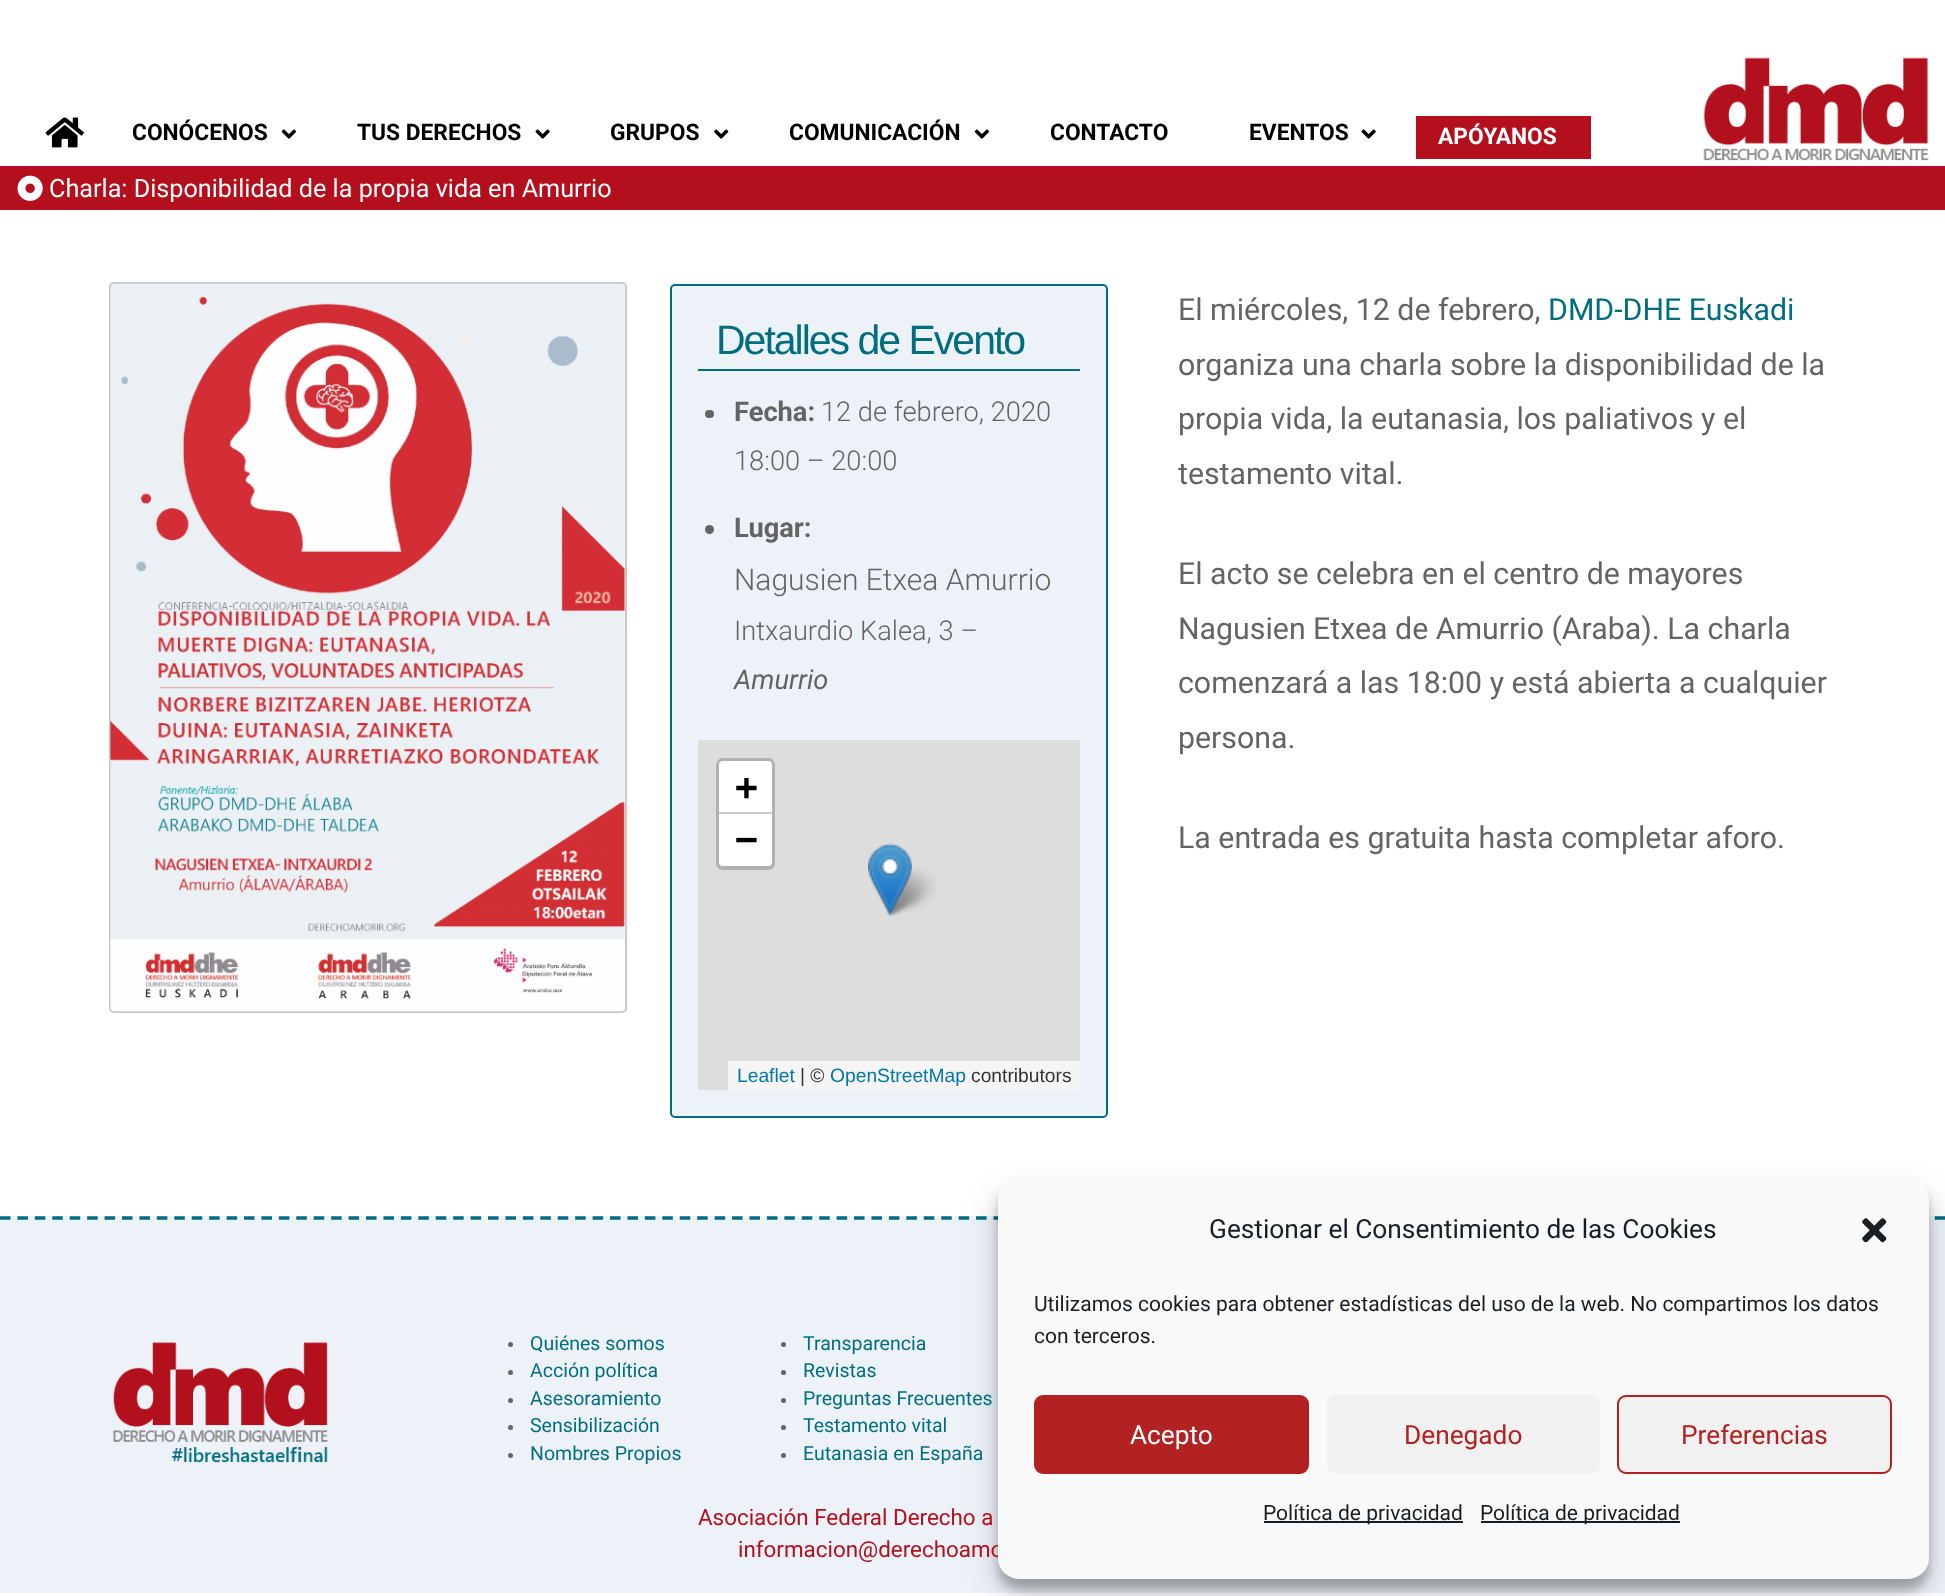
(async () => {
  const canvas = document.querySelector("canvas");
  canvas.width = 1945;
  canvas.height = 1596;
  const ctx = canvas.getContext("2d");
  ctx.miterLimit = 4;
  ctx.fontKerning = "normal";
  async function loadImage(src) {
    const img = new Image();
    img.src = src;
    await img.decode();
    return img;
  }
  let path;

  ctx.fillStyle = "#ffffff";
  ctx.fillRect(0, 0, 1945, 1596);
  ctx.fillStyle = "#be0a27";
  ctx.fillRect(0, 166, 1945, 2);
  ctx.drawImage(await loadImage("img/1.png"), 45, 117, 39, 31);
  ctx.drawImage(await loadImage("img/2.png"), 281, 129, 15, 10);
  ctx.drawImage(await loadImage("img/3.png"), 535, 129, 15, 10);
  ctx.drawImage(await loadImage("img/4.png"), 714, 129, 15, 10);
  ctx.drawImage(await loadImage("img/2.png"), 974, 129, 15, 10);
  ctx.drawImage(await loadImage("img/3.png"), 1361, 129, 15, 10);
  ctx.fillStyle = "#b30f1d";
  ctx.fillRect(1416, 116, 175, 43);
  ctx.drawImage(await loadImage("img/5.png"), 1703, 57, 226, 104);
  ctx.fillRect(0, 168, 1945, 42);
  ctx.drawImage(await loadImage("img/6.png"), 17, 175, 26, 26);
  ctx.beginPath();
  ctx.roundRect(110, 283, 516, 729, 4);
  ctx.strokeStyle = "#c8c8c8";
  ctx.lineWidth = 2;
  ctx.stroke();
  ctx.drawImage(await loadImage("img/7.png"), 110, 283, 515, 729);
  ctx.fillStyle = "#edf2f9";
  ctx.beginPath();
  ctx.roundRect(671, 285, 436, 832, 4);
  ctx.fill();
  ctx.strokeStyle = "#006e7f";
  ctx.stroke();
  ctx.fillStyle = "#006e7f";
  ctx.fillRect(698, 369, 382, 2);
  ctx.fillStyle = "#646464";
  ctx.beginPath();
  ctx.roundRect(705, 410, 9, 8, 4);
  ctx.fill();
  ctx.beginPath();
  ctx.arc(709.5, 529.5, 4.5, 0, Math.PI * 2);
  ctx.fill();
  ctx.fillStyle = "#dddddd";
  ctx.fillRect(698, 740, 382, 350);
  ctx.beginPath();
  ctx.roundRect(718, 760, 55, 108, 5);
  ctx.strokeStyle = "#b1b1b1";
  ctx.lineWidth = 4;
  ctx.stroke();
  ctx.fillStyle = "#ffffff";
  ctx.beginPath();
  ctx.roundRect(719, 761, 53, 53, [4, 4, 0, 0]);
  ctx.fill();
  ctx.fillStyle = "#cccccc";
  ctx.fillRect(719, 812, 53, 2);
  ctx.fillStyle = "#ffffff";
  ctx.beginPath();
  ctx.roundRect(719, 814, 53, 52, [0, 0, 4, 4]);
  ctx.fill();
  ctx.fillStyle = "#f5f5f5";
  ctx.fillRect(728, 1061, 352, 29);
  ctx.drawImage(await loadImage("img/9.png"), 884, 866, 52, 50);
  ctx.drawImage(await loadImage("img/8.png"), 868, 843, 44, 73);
  ctx.fillStyle = "#edf2f9";
  ctx.fillRect(0, 1216, 1945, 377);
  path = new Path2D("M0 1218H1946");
  ctx.strokeStyle = "#006e7f";
  ctx.lineWidth = 3.5;
  ctx.setLineDash([10.5, 6.93]);
  ctx.stroke(path);
  ctx.drawImage(await loadImage("img/10.png"), 113, 1342, 215, 121);
  ctx.fillStyle = "#646464";
  ctx.beginPath();
  ctx.arc(510.5, 1344.5, 2.5, 0, Math.PI * 2);
  ctx.fill();
  ctx.beginPath();
  ctx.arc(783.5, 1344.5, 2.5, 0, Math.PI * 2);
  ctx.fill();
  ctx.beginPath();
  ctx.arc(510.5, 1372.5, 2.5, 0, Math.PI * 2);
  ctx.fill();
  ctx.beginPath();
  ctx.arc(783.5, 1372.5, 2.5, 0, Math.PI * 2);
  ctx.fill();
  ctx.beginPath();
  ctx.arc(510.5, 1400.5, 2.5, 0, Math.PI * 2);
  ctx.fill();
  ctx.beginPath();
  ctx.arc(783.5, 1400.5, 2.5, 0, Math.PI * 2);
  ctx.fill();
  ctx.beginPath();
  ctx.arc(510.5, 1427.5, 2.5, 0, Math.PI * 2);
  ctx.fill();
  ctx.beginPath();
  ctx.arc(783.5, 1427.5, 2.5, 0, Math.PI * 2);
  ctx.fill();
  ctx.beginPath();
  ctx.arc(510.5, 1455.5, 2.5, 0, Math.PI * 2);
  ctx.fill();
  ctx.beginPath();
  ctx.arc(783.5, 1455.5, 2.5, 0, Math.PI * 2);
  ctx.fill();
  ctx.fillStyle = "rgba(0, 0, 0, 0.23)";
  ctx.filter = "blur(5px)";
  ctx.beginPath();
  ctx.roundRect(998, 1188, 931, 401, 21);
  ctx.fill();
  ctx.filter = "none";
  ctx.fillStyle = "rgba(0, 0, 0, 0.19)";
  ctx.filter = "blur(17.5px)";
  ctx.beginPath();
  ctx.roundRect(998, 1195, 931, 401, 21);
  ctx.fill();
  ctx.filter = "none";
  ctx.font = "bold 22.75px Roboto";
  ctx.fillStyle = "#000000";
  for (const [text, x, y] of [
    ["CONÓCENOS", 132, 140],
    ["TUS DERECHOS", 357, 140],
    ["GRUPOS", 610, 140],
    ["COMUNICACIÓN", 789, 140],
    ["CONTACTO", 1050, 140],
    ["EVENTOS", 1249, 140],
  ]) {
    ctx.fillText(text, x, y);
  }
  ctx.fillStyle = "#ffffff";
  ctx.fillText("APÓYANOS", 1438, 144);
  ctx.font = "25.2px Roboto";
  ctx.fillText("Charla: Disponibilidad de la propia vida en Amurrio", 49, 197);
  ctx.letterSpacing = "-2px";
  ctx.font = "41px Liberation Sans";
  ctx.fillStyle = "#006e7f";
  ctx.fillText("Detalles de Evento", 716, 354);
  ctx.letterSpacing = "0px";
  ctx.font = "bold 27.25px Roboto";
  ctx.fillStyle = "#646464";
  ctx.fillText("Fecha:", 734, 421);
  ctx.font = "300 27.25px Roboto";
  ctx.fillText("12 de febrero, 2020", 821, 421);
  ctx.fillText("18:00 – 20:00", 734, 470);
  ctx.font = "bold 27.25px Roboto";
  ctx.fillText("Lugar:", 734, 537);
  ctx.font = "300 30px Roboto";
  ctx.fillText("Nagusien Etxea Amurrio", 734, 590);
  ctx.font = "300 27.25px Roboto";
  ctx.fillText("Intxaurdio Kalea, 3 –", 734, 640);
  ctx.font = "italic 27.25px Roboto";
  ctx.fillText("Amurrio", 734, 689);
  ctx.font = "bold 38px DejaVu Sans Mono";
  ctx.fillStyle = "#000000";
  ctx.fillText("+", 735, 800);
  ctx.fillText("−", 735, 852);
  ctx.font = "19.25px Liberation Sans";
  ctx.fillStyle = "#0078a8";
  ctx.fillText("Leaflet", 737, 1082);
  ctx.fillStyle = "#333333";
  ctx.fillText("| ©", 800, 1082);
  ctx.fillStyle = "#0078a8";
  ctx.fillText("OpenStreetMap", 830, 1082);
  ctx.fillStyle = "#333333";
  ctx.fillText("contributors", 971, 1082);
  ctx.font = "30.3px Roboto";
  ctx.fillStyle = "#646464";
  ctx.fillText("El miércoles, 12 de febrero,", 1178, 320);
  ctx.fillStyle = "#006e7f";
  ctx.fillText("DMD-DHE Euskadi", 1548, 320);
  ctx.fillStyle = "#646464";
  for (const [text, x, y] of [
    ["organiza una charla sobre la disponibilidad de la", 1178, 375],
    ["propia vida, la eutanasia, los paliativos y el", 1178, 429],
    ["testamento vital.", 1178, 484],
    ["El acto se celebra en el centro de mayores", 1178, 584],
    ["Nagusien Etxea de Amurrio (Araba). La charla", 1178, 639],
    ["comenzará a las 18:00 y está abierta a cualquier", 1178, 693],
    ["persona.", 1178, 748],
    ["La entrada es gratuita hasta completar aforo.", 1178, 848],
  ]) {
    ctx.fillText(text, x, y);
  }
  ctx.font = "19.5px Roboto";
  ctx.fillStyle = "#006e7f";
  for (const [text, x, y] of [
    ["Quiénes somos", 530, 1350],
    ["Transparencia", 803, 1350],
    ["Acción política", 530, 1377],
    ["Revistas", 803, 1377],
    ["Asesoramiento", 530, 1405],
    ["Preguntas Frecuentes", 803, 1405],
    ["Sensibilización", 530, 1432],
    ["Testamento vital", 803, 1432],
    ["Nombres Propios", 530, 1460],
    ["Eutanasia en España", 803, 1460],
  ]) {
    ctx.fillText(text, x, y);
  }
  ctx.font = "22.4px Roboto";
  ctx.fillStyle = "#b30f1d";
  ctx.fillText("Asociación Federal Derecho a", 698, 1525);
  ctx.fillText("informacion@derechoamo", 738, 1557);
  ctx.fillStyle = "#f9f9f9";
  ctx.beginPath();
  ctx.roundRect(999, 1179, 929, 399, 20);
  ctx.fill();
  ctx.strokeStyle = "#f9f9f9";
  ctx.lineWidth = 2;
  ctx.setLineDash([]);
  ctx.stroke();
  ctx.font = "26.25px Roboto";
  ctx.fillStyle = "#191e23";
  ctx.fillText("Gestionar el Consentimiento de las Cookies", 1209, 1238);
  ctx.drawImage(await loadImage("img/11.png"), 1862, 1218, 25, 25);
  ctx.font = "21px Roboto";
  ctx.fillText("Utilizamos cookies para obtener estadísticas del uso de la web. No compartimos los datos", 1034, 1311);
  ctx.fillText("con terceros.", 1034, 1343);
  ctx.fillStyle = "#b22222";
  ctx.beginPath();
  ctx.roundRect(1035, 1396, 273, 77, 8);
  ctx.fill();
  ctx.strokeStyle = "#b22222";
  ctx.stroke();
  ctx.font = "26.25px Roboto";
  ctx.fillStyle = "#ffffff";
  ctx.fillText("Acepto", 1130, 1444);
  ctx.fillStyle = "#f1f1f1";
  ctx.beginPath();
  ctx.roundRect(1327, 1395, 273, 79, 9);
  ctx.fill();
  ctx.fillStyle = "#b22222";
  ctx.fillText("Denegado", 1404, 1444);
  ctx.fillStyle = "#f1f1f1";
  ctx.beginPath();
  ctx.roundRect(1618, 1396, 273, 77, 8);
  ctx.fill();
  ctx.stroke();
  ctx.fillStyle = "#b22222";
  ctx.fillText("Preferencias", 1681, 1444);
  ctx.fillStyle = "#191e23";
  ctx.fillRect(1264, 1521, 199, 2);
  ctx.font = "21px Roboto";
  ctx.fillText("Política de privacidad", 1263, 1520);
  ctx.fillRect(1481, 1521, 199, 2);
  ctx.fillText("Política de privacidad", 1480, 1520);
})();
